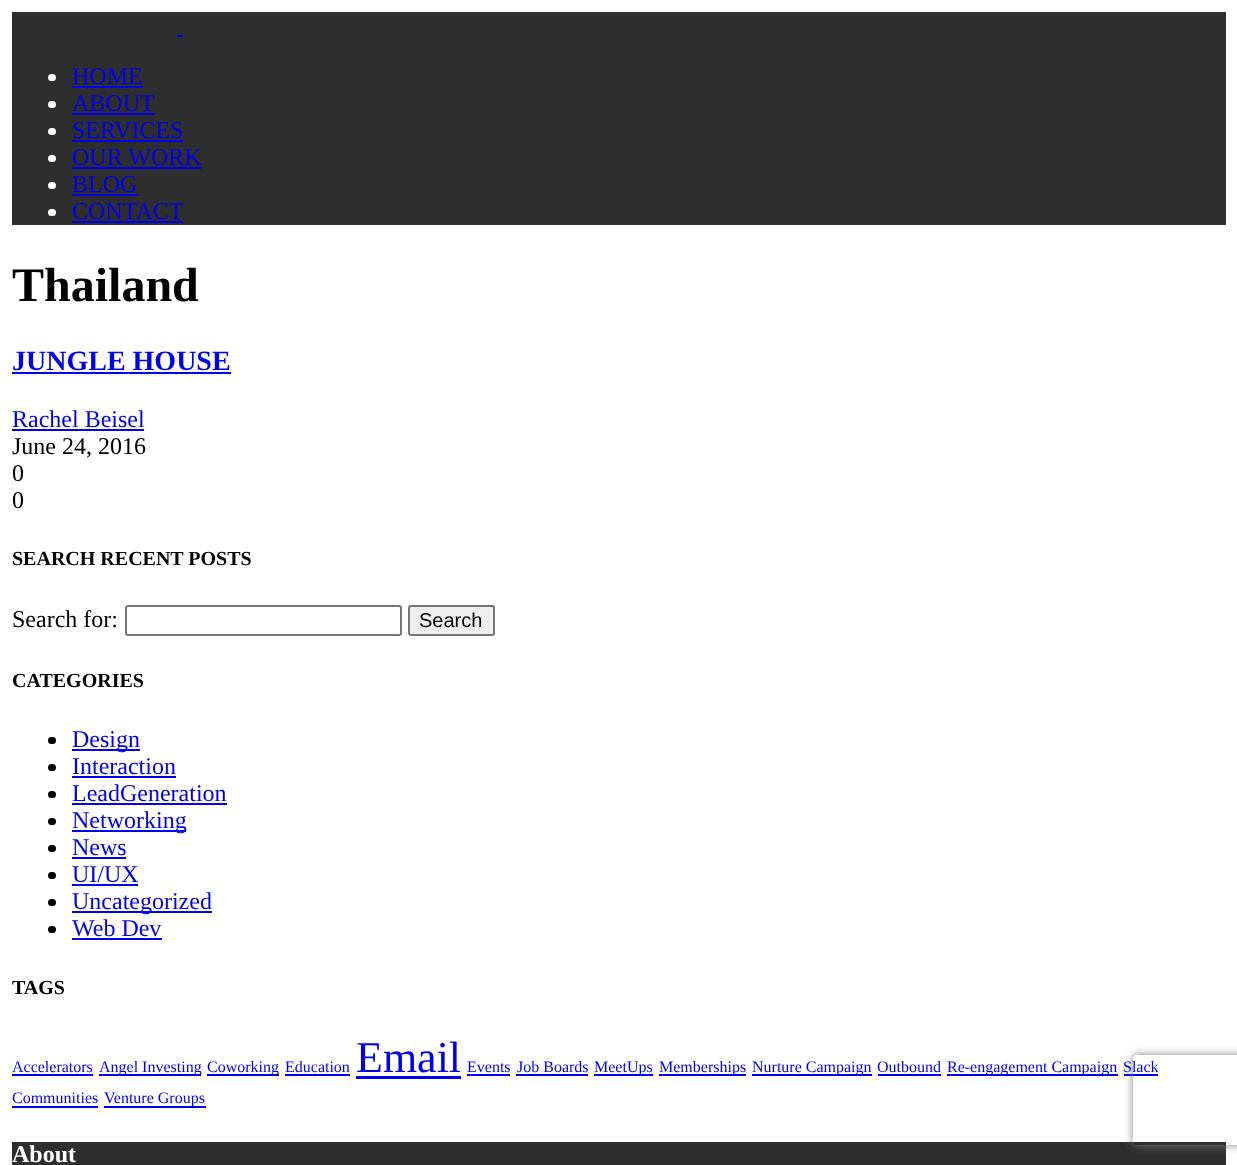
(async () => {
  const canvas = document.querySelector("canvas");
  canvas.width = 1237;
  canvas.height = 1165;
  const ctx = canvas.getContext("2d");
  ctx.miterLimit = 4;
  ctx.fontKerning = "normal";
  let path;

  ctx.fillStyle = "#ffffff";
  ctx.fillRect(0, 0, 1237, 1165);
  ctx.fillStyle = "#2f2e2f";
  ctx.fillRect(12, 12, 1214, 213);
  ctx.fillStyle = "#0000ee";
  ctx.fillRect(177, 35, 6, 2);
  ctx.fillStyle = "#ffffff";
  ctx.beginPath();
  ctx.roundRect(48, 74, 8, 7, 3.5);
  ctx.fill();
  ctx.fillStyle = "#0000ee";
  ctx.fillRect(72, 86, 71, 2);
  ctx.fillStyle = "#ffffff";
  ctx.beginPath();
  ctx.roundRect(48, 101, 8, 7, 3.5);
  ctx.fill();
  ctx.fillStyle = "#0000ee";
  ctx.fillRect(72, 113, 83, 2);
  ctx.fillStyle = "#ffffff";
  ctx.beginPath();
  ctx.roundRect(48, 128, 8, 7, 3.5);
  ctx.fill();
  ctx.fillStyle = "#0000ee";
  ctx.fillRect(72, 140, 111, 2);
  ctx.fillStyle = "#ffffff";
  ctx.beginPath();
  ctx.roundRect(48, 155, 8, 7, 3.5);
  ctx.fill();
  ctx.fillStyle = "#0000ee";
  ctx.fillRect(72, 167, 129, 2);
  ctx.fillStyle = "#ffffff";
  ctx.beginPath();
  ctx.roundRect(48, 182, 8, 7, 3.5);
  ctx.fill();
  ctx.fillStyle = "#0000ee";
  ctx.fillRect(72, 194, 66, 2);
  ctx.fillStyle = "#ffffff";
  ctx.beginPath();
  ctx.roundRect(48, 209, 8, 7, 3.5);
  ctx.fill();
  for (const [x, y, w, h, color] of [
    [72, 221, 111, 2, "#0000ee"],
    [12, 372, 219, 2, "#0000ee"],
    [12, 429, 132, 2, "#0000ee"],
  ]) {
    ctx.fillStyle = color;
    ctx.fillRect(x, y, w, h);
  }
  ctx.beginPath();
  ctx.roundRect(126, 606, 275, 29, 2);
  ctx.strokeStyle = "#767676";
  ctx.lineWidth = 2;
  ctx.stroke();
  ctx.fillStyle = "#efefef";
  ctx.beginPath();
  ctx.roundRect(409, 606, 85, 29, 2);
  ctx.fill();
  ctx.stroke();
  ctx.fillStyle = "#000000";
  ctx.beginPath();
  ctx.roundRect(48, 737, 8, 7, 3.5);
  ctx.fill();
  ctx.fillStyle = "#0000ee";
  ctx.fillRect(72, 749, 68, 2);
  ctx.fillStyle = "#000000";
  ctx.beginPath();
  ctx.roundRect(48, 764, 8, 7, 3.5);
  ctx.fill();
  ctx.fillStyle = "#0000ee";
  ctx.fillRect(72, 776, 104, 2);
  ctx.fillStyle = "#000000";
  ctx.beginPath();
  ctx.roundRect(48, 791, 8, 7, 3.5);
  ctx.fill();
  ctx.fillStyle = "#0000ee";
  ctx.fillRect(72, 803, 155, 2);
  ctx.fillStyle = "#000000";
  ctx.beginPath();
  ctx.roundRect(48, 818, 8, 7, 3.5);
  ctx.fill();
  ctx.fillStyle = "#0000ee";
  ctx.fillRect(72, 830, 114, 2);
  ctx.fillStyle = "#000000";
  ctx.beginPath();
  ctx.roundRect(48, 845, 8, 7, 3.5);
  ctx.fill();
  ctx.fillStyle = "#0000ee";
  ctx.fillRect(72, 857, 54, 2);
  ctx.fillStyle = "#000000";
  ctx.beginPath();
  ctx.roundRect(48, 872, 8, 7, 3.5);
  ctx.fill();
  ctx.fillStyle = "#0000ee";
  ctx.fillRect(72, 884, 66, 2);
  ctx.fillStyle = "#000000";
  ctx.beginPath();
  ctx.roundRect(48, 899, 8, 7, 3.5);
  ctx.fill();
  ctx.fillStyle = "#0000ee";
  ctx.fillRect(72, 911, 140, 2);
  ctx.fillStyle = "#000000";
  ctx.beginPath();
  ctx.roundRect(48, 926, 8, 7, 3.5);
  ctx.fill();
  for (const [x, y, w, h, color] of [
    [72, 938, 90, 2, "#0000ee"],
    [12, 1074, 81, 2, "#0000ee"],
    [99, 1074, 102, 2, "#0000ee"],
    [207, 1074, 72, 2, "#0000ee"],
    [285, 1074, 65, 2, "#0000ee"],
    [356, 1076, 105, 3, "#0000ee"],
    [467, 1074, 43, 2, "#0000ee"],
    [516, 1074, 72, 2, "#0000ee"],
    [594, 1074, 59, 2, "#0000ee"],
    [659, 1074, 87, 2, "#0000ee"],
    [752, 1074, 120, 2, "#0000ee"],
    [878, 1074, 63, 2, "#0000ee"],
    [947, 1074, 171, 2, "#0000ee"],
    [1124, 1074, 34, 2, "#0000ee"],
    [12, 1106, 86, 2, "#0000ee"],
    [104, 1106, 102, 2, "#0000ee"],
    [12, 1142, 1214, 23, "#2f2e2f"],
  ]) {
    ctx.fillStyle = color;
    ctx.fillRect(x, y, w, h);
  }
  ctx.save();
  path = new Path2D("M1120 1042H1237V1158H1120ZM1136 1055H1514C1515.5 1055 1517 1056.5 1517 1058V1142C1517 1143.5 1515.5 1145 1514 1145H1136C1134.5 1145 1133 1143.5 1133 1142V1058C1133 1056.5 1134.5 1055 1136 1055Z");
  ctx.clip(path, "evenodd");
  ctx.fillStyle = "#808080";
  ctx.filter = "blur(4px)";
  ctx.beginPath();
  ctx.roundRect(1133, 1055, 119, 90, 3);
  ctx.fill();
  ctx.filter = "none";
  ctx.restore();
  ctx.font = "24px Liberation Serif";
  ctx.fillStyle = "#0000ee";
  for (const [text, x, y] of [
    ["HOME", 72, 84],
    ["ABOUT", 72, 111],
    ["SERVICES", 72, 138],
    ["OUR WORK", 72, 165],
    ["BLOG", 72, 192],
    ["CONTACT", 72, 219],
  ]) {
    ctx.fillText(text, x, y);
  }
  ctx.font = "bold 48px Liberation Serif";
  ctx.fillStyle = "#000000";
  ctx.fillText("Thailand", 12, 301);
  ctx.font = "bold 28px Liberation Serif";
  ctx.fillStyle = "#0000ee";
  ctx.fillText("JUNGLE HOUSE", 12, 370);
  ctx.font = "24px Liberation Serif";
  ctx.fillText("Rachel Beisel", 12, 427);
  ctx.fillStyle = "#000000";
  for (const [text, x, y] of [
    ["June 24, 2016", 12, 454],
    ["0", 12, 481],
    ["0", 12, 508],
  ]) {
    ctx.fillText(text, x, y);
  }
  ctx.font = "bold 20px Liberation Serif";
  ctx.fillText("SEARCH RECENT POSTS", 12, 565);
  ctx.font = "24px Liberation Serif";
  ctx.fillText("Search for:", 12, 627);
  ctx.font = "20px Liberation Sans";
  ctx.fillText("Search", 419, 627);
  ctx.font = "bold 20px Liberation Serif";
  ctx.fillText("CATEGORIES", 12, 687);
  ctx.font = "24px Liberation Serif";
  ctx.fillStyle = "#0000ee";
  for (const [text, x, y] of [
    ["Design", 72, 747],
    ["Interaction", 72, 774],
    ["LeadGeneration", 72, 801],
    ["Networking", 72, 828],
    ["News", 72, 855],
    ["UI/UX", 72, 882],
    ["Uncategorized", 72, 909],
    ["Web Dev", 72, 936],
  ]) {
    ctx.fillText(text, x, y);
  }
  ctx.font = "bold 20px Liberation Serif";
  ctx.fillStyle = "#000000";
  ctx.fillText("TAGS", 12, 994);
  ctx.font = "16px Liberation Serif";
  ctx.fillStyle = "#0000ee";
  for (const [text, x, y] of [
    ["Accelerators", 12, 1072],
    ["Angel Investing", 99, 1072],
    ["Coworking", 207, 1072],
    ["Education", 285, 1072],
  ]) {
    ctx.fillText(text, x, y);
  }
  ctx.font = "44px Liberation Serif";
  ctx.fillText("Email", 356, 1072);
  ctx.font = "16px Liberation Serif";
  for (const [text, x, y] of [
    ["Events", 467, 1072],
    ["Job Boards", 517, 1072],
    ["MeetUps", 594, 1072],
    ["Memberships", 659, 1072],
    ["Nurture Campaign", 752, 1072],
    ["Outbound", 877, 1072],
    ["Re-engagement Campaign", 947, 1072],
    ["Slack", 1123, 1072],
    ["Communities", 12, 1103],
    ["Venture Groups", 104, 1103],
  ]) {
    ctx.fillText(text, x, y);
  }
  ctx.font = "bold 24px Liberation Serif";
  ctx.fillStyle = "#ffffff";
  ctx.fillText("About", 12, 1162);
})();
